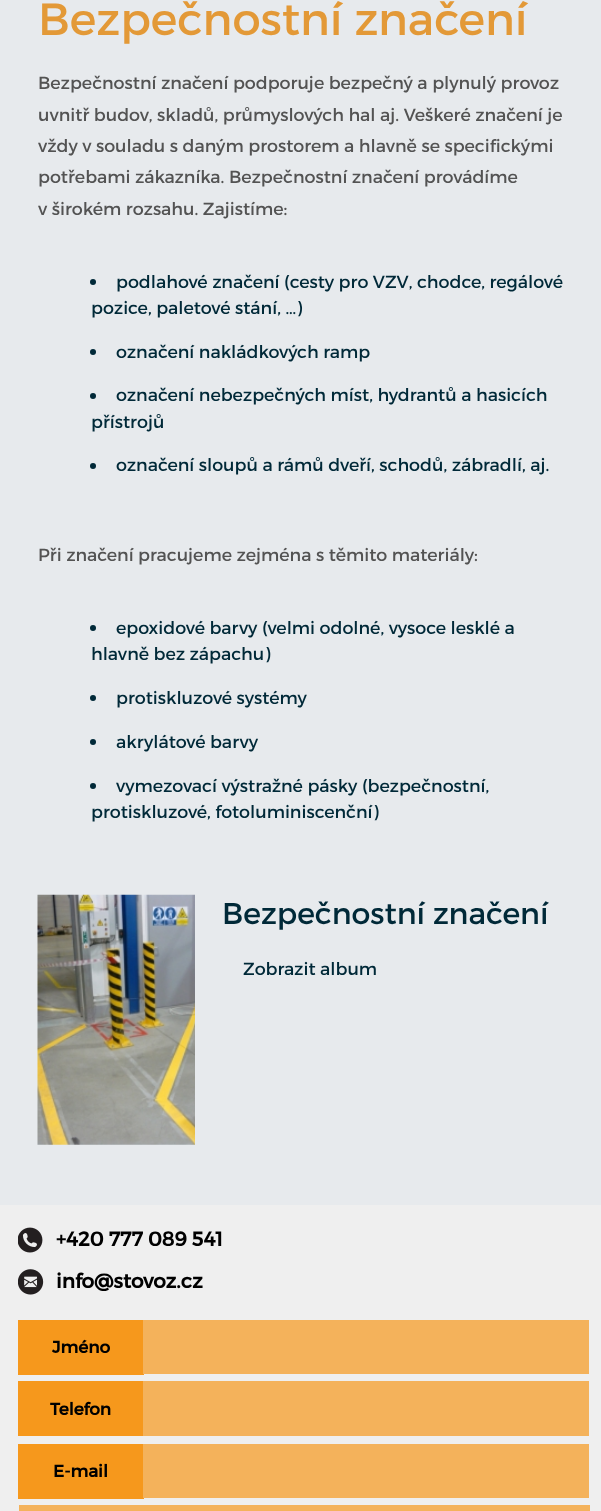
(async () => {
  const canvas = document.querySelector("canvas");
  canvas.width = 601;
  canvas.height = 1511;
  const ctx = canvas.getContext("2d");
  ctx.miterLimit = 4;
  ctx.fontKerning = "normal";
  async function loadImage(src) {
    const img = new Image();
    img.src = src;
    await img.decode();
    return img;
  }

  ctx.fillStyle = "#e7eaed";
  ctx.fillRect(0, 0, 601, 1511);
  ctx.fillStyle = "#002938";
  ctx.beginPath();
  ctx.arc(93, 282, 3, 0, Math.PI * 2);
  ctx.fill();
  ctx.beginPath();
  ctx.arc(93, 352, 3, 0, Math.PI * 2);
  ctx.fill();
  ctx.beginPath();
  ctx.arc(93, 396, 3, 0, Math.PI * 2);
  ctx.fill();
  ctx.beginPath();
  ctx.arc(93, 466, 3, 0, Math.PI * 2);
  ctx.fill();
  ctx.beginPath();
  ctx.arc(93, 628, 3, 0, Math.PI * 2);
  ctx.fill();
  ctx.beginPath();
  ctx.arc(93, 698, 3, 0, Math.PI * 2);
  ctx.fill();
  ctx.beginPath();
  ctx.arc(93, 742, 3, 0, Math.PI * 2);
  ctx.fill();
  ctx.beginPath();
  ctx.arc(93, 786, 3, 0, Math.PI * 2);
  ctx.fill();
  ctx.drawImage(await loadImage("img/1.png"), 37, 894, 158, 251);
  ctx.fillStyle = "#efefef";
  ctx.fillRect(0, 1205, 601, 306);
  ctx.drawImage(await loadImage("img/2.png"), 18, 1227, 25, 26);
  ctx.drawImage(await loadImage("img/3.png"), 18, 1269, 26, 26);
  for (const [x, y, w, h, color] of [
    [18, 1320, 126, 55, "#f6981c"],
    [143, 1320, 446, 54, "#f4b25b"],
    [18, 1381, 125, 55, "#f6981c"],
    [143, 1381, 446, 55, "#f4b25b"],
    [18, 1444, 126, 55, "#f6981c"],
    [143, 1444, 446, 54, "#f4b25b"],
    [19, 1505, 571, 6, "#f4b25b"],
  ]) {
    ctx.fillStyle = color;
    ctx.fillRect(x, y, w, h);
  }
  ctx.font = "45px Montserrat";
  ctx.fillStyle = "#e39937";
  ctx.fillText("Bezpečnostní značení", 38, 35);
  ctx.font = "17.5px Montserrat";
  ctx.fillStyle = "#535353";
  for (const [text, x, y] of [
    ["Bezpečnostní značení podporuje bezpečný a plynulý provoz", 38, 89],
    ["uvnitř budov, skladů, průmyslových hal aj. Veškeré značení je", 38, 121],
    ["vždy v souladu s daným prostorem a hlavně se specifickými", 38, 152],
    ["potřebami zákazníka. Bezpečnostní značení provádíme", 38, 183],
    ["v širokém rozsahu. Zajistíme:", 38, 215],
  ]) {
    ctx.fillText(text, x, y);
  }
  ctx.fillStyle = "#002938";
  for (const [text, x, y] of [
    ["podlahové značení (cesty pro VZV, chodce, regálové", 116, 288],
    ["pozice, paletové stání, …)", 91, 314],
    ["označení nakládkových ramp", 116, 358],
    ["označení nebezpečných míst, hydrantů a hasicích", 116, 401],
    ["přístrojů", 91, 428],
    ["označení sloupů a rámů dveří, schodů, zábradlí, aj.", 116, 471],
  ]) {
    ctx.fillText(text, x, y);
  }
  ctx.fillStyle = "#535353";
  ctx.fillText("Při značení pracujeme zejména s těmito materiály:", 38, 561);
  ctx.fillStyle = "#002938";
  for (const [text, x, y] of [
    ["epoxidové barvy (velmi odolné, vysoce lesklé a", 116, 634],
    ["hlavně bez zápachu)", 91, 660],
    ["protiskluzové systémy", 116, 704],
    ["akrylátové barvy", 116, 748],
    ["vymezovací výstražné pásky (bezpečnostní,", 116, 792],
    ["protiskluzové, fotoluminiscenční)", 91, 818],
  ]) {
    ctx.fillText(text, x, y);
  }
  ctx.font = "30px Montserrat";
  ctx.fillText("Bezpečnostní značení", 222, 924);
  ctx.font = "17.5px Montserrat";
  ctx.fillText("Zobrazit album", 243, 975);
  ctx.font = "bold 20px Montserrat";
  ctx.fillStyle = "#000000";
  ctx.fillText("+420 777 089 541", 56, 1246);
  ctx.fillText("info@stovoz.cz", 56, 1288);
  ctx.font = "bold 17px Montserrat";
  for (const [text, x, y] of [
    ["Jméno", 52, 1353],
    ["Telefon", 50, 1415],
    ["E-mail", 53, 1477],
  ]) {
    ctx.fillText(text, x, y);
  }
})();
